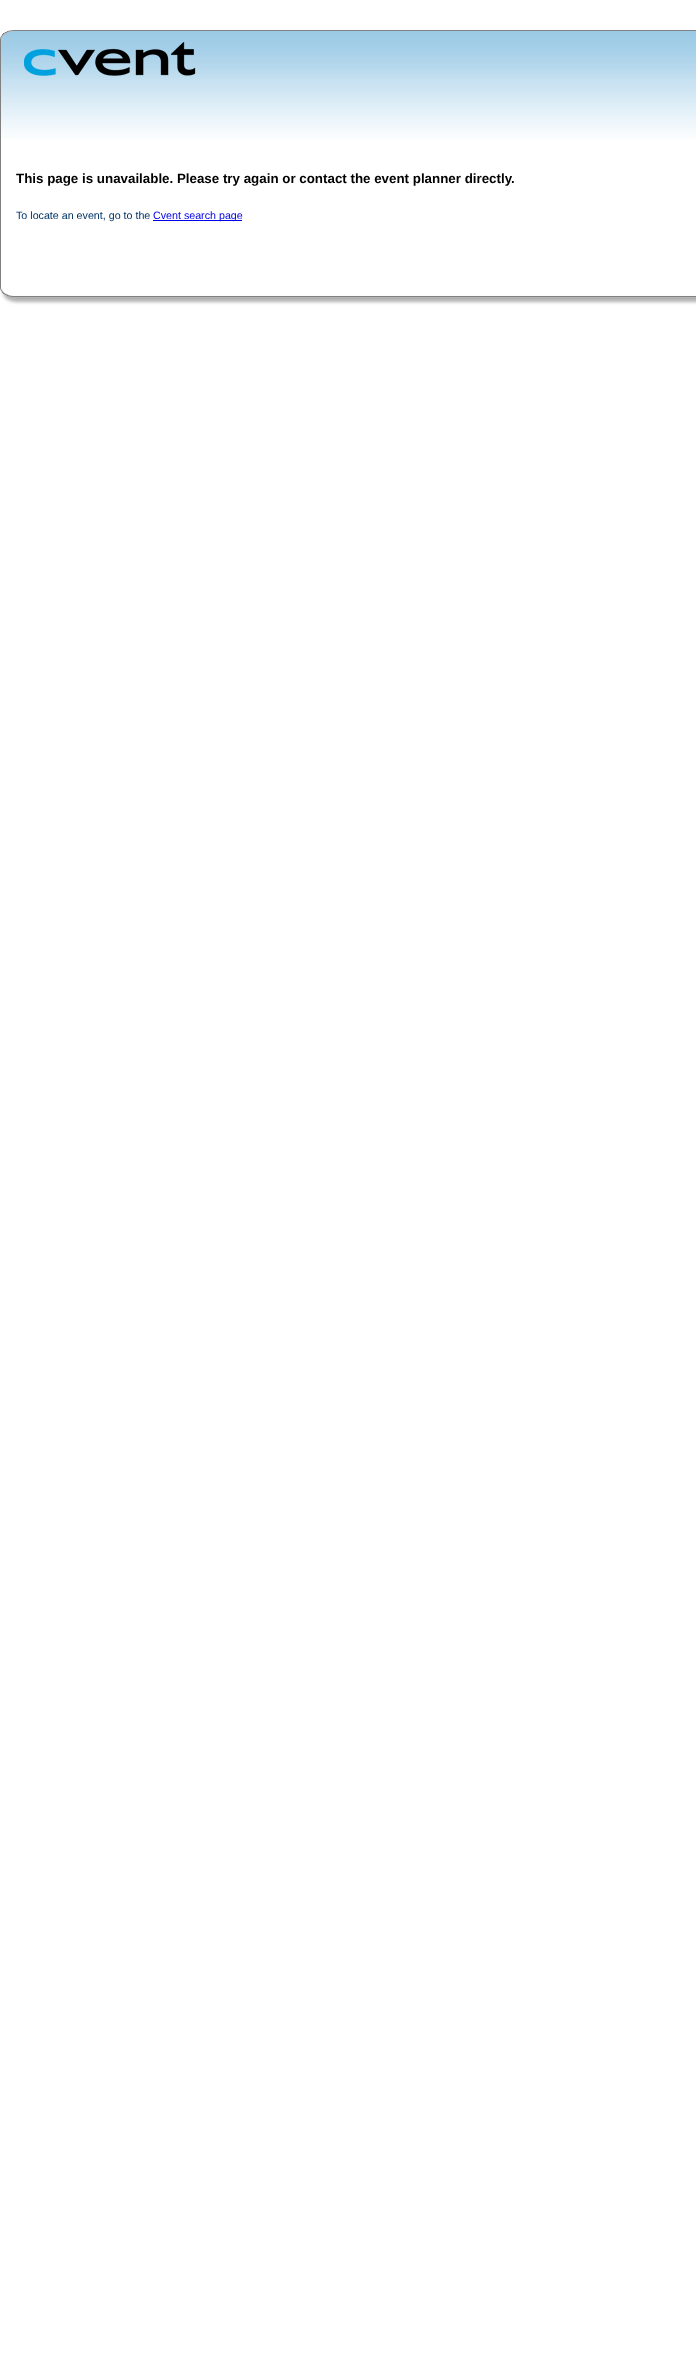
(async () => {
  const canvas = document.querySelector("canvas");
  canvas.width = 696;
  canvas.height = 2369;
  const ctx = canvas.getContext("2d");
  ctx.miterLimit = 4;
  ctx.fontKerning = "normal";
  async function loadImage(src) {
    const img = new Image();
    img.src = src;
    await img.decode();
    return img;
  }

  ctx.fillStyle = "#ffffff";
  ctx.fillRect(0, 0, 696, 2369);
  ctx.fillStyle = "#808080";
  ctx.fillRect(0, 139, 1, 148);
  ctx.drawImage(await loadImage("img/1.png"), 0, 30, 696, 109);
  ctx.fillStyle = "#0000ee";
  ctx.fillRect(153, 220, 89, 1);
  ctx.drawImage(await loadImage("img/2.png"), 0, 287, 696, 18);
  ctx.font = "bold 13.35px Liberation Sans";
  ctx.fillStyle = "#000000";
  ctx.fillText("This page is unavailable. Please try again or contact the event planner directly.", 16, 183);
  ctx.font = "10.7px Liberation Sans";
  ctx.fillStyle = "#003366";
  ctx.fillText("To locate an event, go to the", 16, 219);
  ctx.fillStyle = "#0000ee";
  ctx.fillText("Cvent search page", 153, 219);
})();
